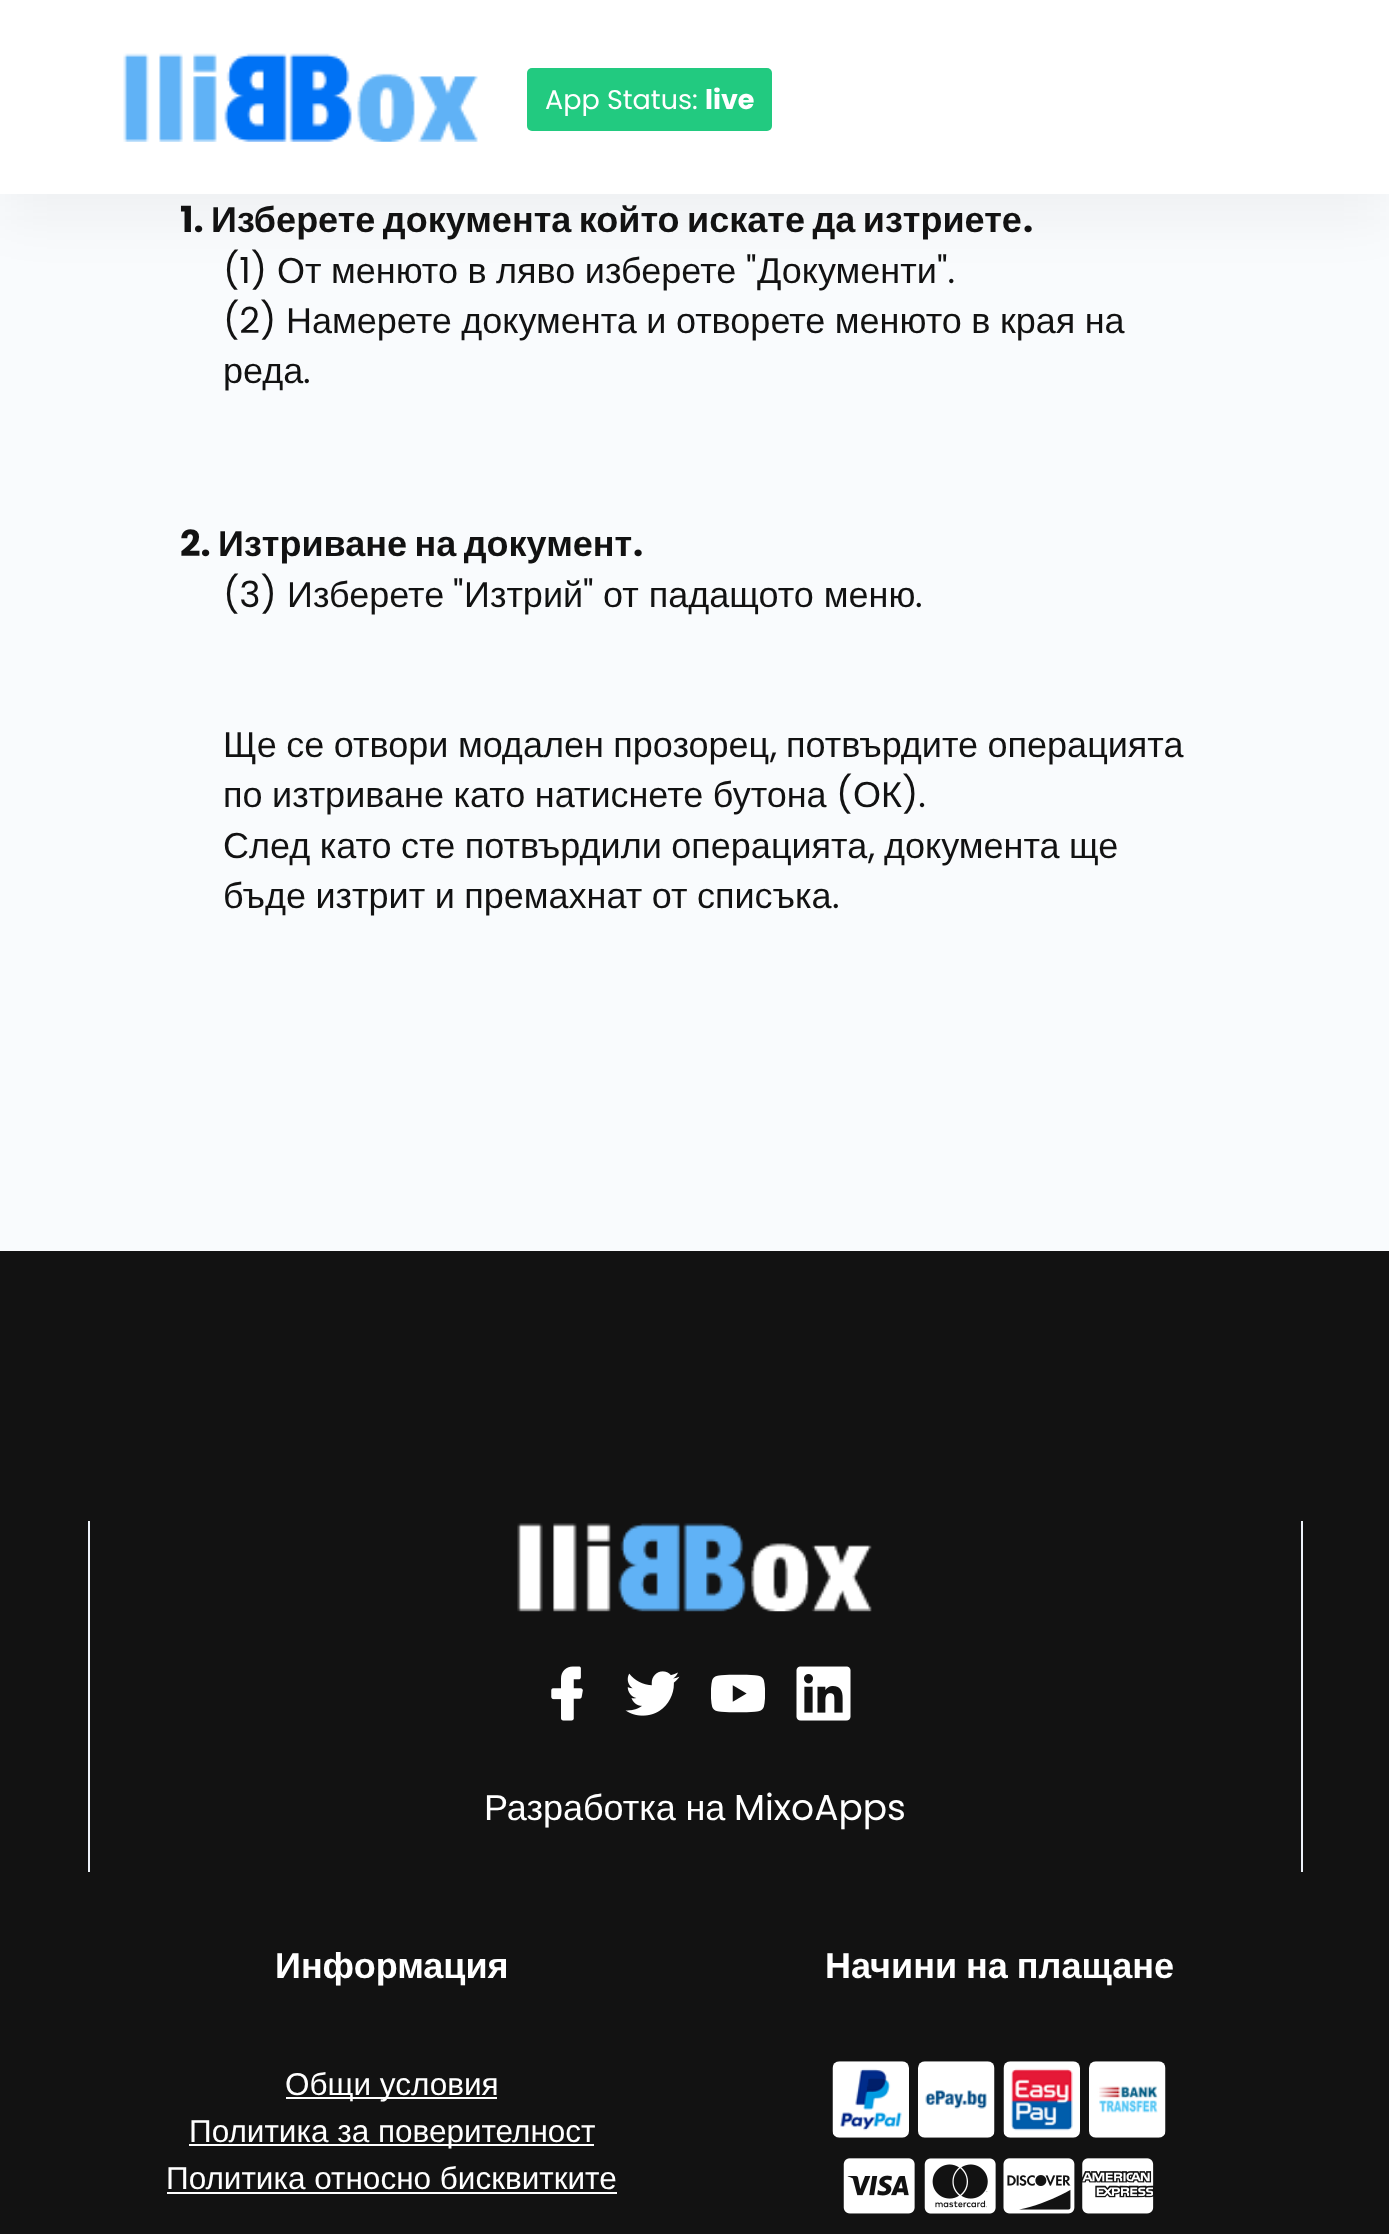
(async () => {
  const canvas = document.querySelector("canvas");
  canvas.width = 1389;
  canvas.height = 2234;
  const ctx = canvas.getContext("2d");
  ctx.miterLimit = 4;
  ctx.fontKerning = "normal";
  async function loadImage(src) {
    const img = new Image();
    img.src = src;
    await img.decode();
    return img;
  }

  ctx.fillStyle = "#f9fbfd";
  ctx.fillRect(0, 0, 1389, 2234);
  ctx.fillStyle = "rgba(18, 18, 18, 0.05)";
  ctx.filter = "blur(28px)";
  ctx.beginPath();
  ctx.rect(0, 23, 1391, 193);
  ctx.fill();
  ctx.filter = "none";
  ctx.fillStyle = "#ffffff";
  ctx.fillRect(0, 0, 1389, 194);
  ctx.drawImage(await loadImage("img/1.png"), 123, 53, 355, 89);
  ctx.fillStyle = "#22ca80";
  ctx.beginPath();
  ctx.roundRect(527, 68, 245, 63, 5);
  ctx.fill();
  for (const [x, y, w, h, color] of [
    [0, 1251, 1389, 983, "#121212"],
    [1301, 1521, 2, 351, "#edf2f9"],
    [88, 1521, 2, 351, "#edf2f9"],
  ]) {
    ctx.fillStyle = color;
    ctx.fillRect(x, y, w, h);
  }
  ctx.drawImage(await loadImage("img/2.png"), 517, 1523, 355, 89);
  ctx.drawImage(await loadImage("img/3.png"), 551, 1666, 32, 55);
  ctx.drawImage(await loadImage("img/4.png"), 625, 1671, 55, 45);
  ctx.drawImage(await loadImage("img/5.png"), 711, 1674, 54, 39);
  ctx.drawImage(await loadImage("img/6.png"), 796, 1666, 55, 55);
  for (const [x, y, w, h, color] of [
    [286, 2097, 211, 2, "#ffffff"],
    [189, 2144, 405, 2, "#ffffff"],
    [167, 2192, 450, 2, "#ffffff"],
  ]) {
    ctx.fillStyle = color;
    ctx.fillRect(x, y, w, h);
  }
  ctx.drawImage(await loadImage("img/7.png"), 832, 2061, 77, 77);
  ctx.drawImage(await loadImage("img/8.png"), 918, 2061, 77, 77);
  ctx.drawImage(await loadImage("img/9.png"), 1003, 2061, 77, 77);
  ctx.drawImage(await loadImage("img/10.png"), 1089, 2061, 77, 77);
  ctx.drawImage(await loadImage("img/11.png"), 843, 2158, 72, 56);
  ctx.drawImage(await loadImage("img/12.png"), 924, 2158, 72, 56);
  ctx.drawImage(await loadImage("img/13.png"), 1003, 2158, 72, 56);
  ctx.drawImage(await loadImage("img/14.png"), 1082, 2158, 72, 56);
  ctx.font = "27px Poppins";
  ctx.fillText("App Status:", 545, 109);
  ctx.font = "bold 27px Poppins";
  ctx.fillText("live", 705, 109);
  ctx.font = "bold 36px Poppins";
  ctx.fillStyle = "#121212";
  ctx.fillText("1.", 180, 232);
  ctx.wordSpacing = "-2.5px";
  ctx.font = "bold 36px Liberation Sans";
  ctx.fillText("Изберете документа който искате да изтриете", 211, 232);
  ctx.wordSpacing = "0px";
  ctx.font = "bold 36px Poppins";
  ctx.fillText(".", 1023, 232);
  ctx.font = "36px Poppins";
  ctx.fillText("(1)", 223, 283);
  ctx.wordSpacing = "-0.5px";
  ctx.font = "36px Liberation Sans";
  ctx.fillText("От менюто в ляво изберете", 277, 283);
  ctx.wordSpacing = "0px";
  ctx.font = "36px Poppins";
  ctx.fillText("\"", 746, 283);
  ctx.font = "36px Liberation Sans";
  ctx.fillText("Документи", 757, 283);
  ctx.font = "36px Poppins";
  ctx.fillText("\".", 937, 283);
  ctx.fillText("(2)", 223, 333);
  ctx.wordSpacing = "-0.5px";
  ctx.font = "36px Liberation Sans";
  ctx.fillText("Намерете документа и отворете менюто в края на", 286, 333);
  ctx.wordSpacing = "0px";
  ctx.fillText("реда", 223, 383);
  ctx.font = "36px Poppins";
  ctx.fillText(".", 303, 383);
  ctx.font = "bold 36px Poppins";
  ctx.fillText("2.", 180, 556);
  ctx.wordSpacing = "-2.5px";
  ctx.font = "bold 36px Liberation Sans";
  ctx.fillText("Изтриване на документ", 218, 556);
  ctx.wordSpacing = "0px";
  ctx.font = "bold 36px Poppins";
  ctx.fillText(".", 633, 556);
  ctx.font = "36px Poppins";
  ctx.fillText("(3)", 223, 607);
  ctx.font = "36px Liberation Sans";
  ctx.fillText("Изберете", 287, 607);
  ctx.font = "36px Poppins";
  ctx.fillText("\"", 453, 607);
  ctx.font = "36px Liberation Sans";
  ctx.fillText("Изтрий", 464, 607);
  ctx.font = "36px Poppins";
  ctx.fillText("\"", 583, 607);
  ctx.font = "36px Liberation Sans";
  ctx.fillText("от падащото меню", 603, 607);
  ctx.font = "36px Poppins";
  ctx.fillText(".", 915, 607);
  ctx.wordSpacing = "-0.5px";
  ctx.font = "36px Liberation Sans";
  ctx.fillText("Ще се отвори модален прозорец", 223, 757);
  ctx.wordSpacing = "0px";
  ctx.font = "36px Poppins";
  ctx.fillText(",", 770, 757);
  ctx.wordSpacing = "-0.5px";
  ctx.font = "36px Liberation Sans";
  ctx.fillText("потвърдите операцията", 786, 757);
  ctx.fillText("по изтриване като натиснете бутона", 223, 807);
  ctx.wordSpacing = "0px";
  ctx.font = "36px Poppins";
  ctx.fillText("(", 836, 807);
  ctx.font = "36px Liberation Sans";
  ctx.fillText("ОК", 853, 807);
  ctx.font = "36px Poppins";
  ctx.fillText(").", 902, 807);
  ctx.wordSpacing = "-0.5px";
  ctx.font = "36px Liberation Sans";
  ctx.fillText("След като сте потвърдили операцията", 223, 858);
  ctx.wordSpacing = "0px";
  ctx.font = "36px Poppins";
  ctx.fillText(",", 868, 858);
  ctx.wordSpacing = "-0.5px";
  ctx.font = "36px Liberation Sans";
  ctx.fillText("документа ще", 884, 858);
  ctx.fillText("бъде изтрит и премахнат от списъка", 223, 908);
  ctx.wordSpacing = "0px";
  ctx.font = "36px Poppins";
  ctx.fillText(".", 832, 908);
  ctx.wordSpacing = "-0.5px";
  ctx.font = "36px Liberation Sans";
  ctx.fillStyle = "#ffffff";
  ctx.fillText("Разработка на", 484, 1820);
  ctx.wordSpacing = "0px";
  ctx.font = "36px Poppins";
  ctx.fillText("MixoApps", 734, 1820);
  ctx.font = "bold 36px Liberation Sans";
  ctx.fillText("Информация", 275, 1978);
  ctx.font = "31.5px Liberation Sans";
  for (const [text, x, y] of [
    ["Общи условия", 285, 2095],
    ["Политика за поверителност", 189, 2142],
    ["Политика относно бисквитките", 166, 2189],
  ]) {
    ctx.fillText(text, x, y);
  }
  ctx.wordSpacing = "-1px";
  ctx.font = "bold 36px Liberation Sans";
  ctx.fillText("Начини на плащане", 825, 1978);
})();
